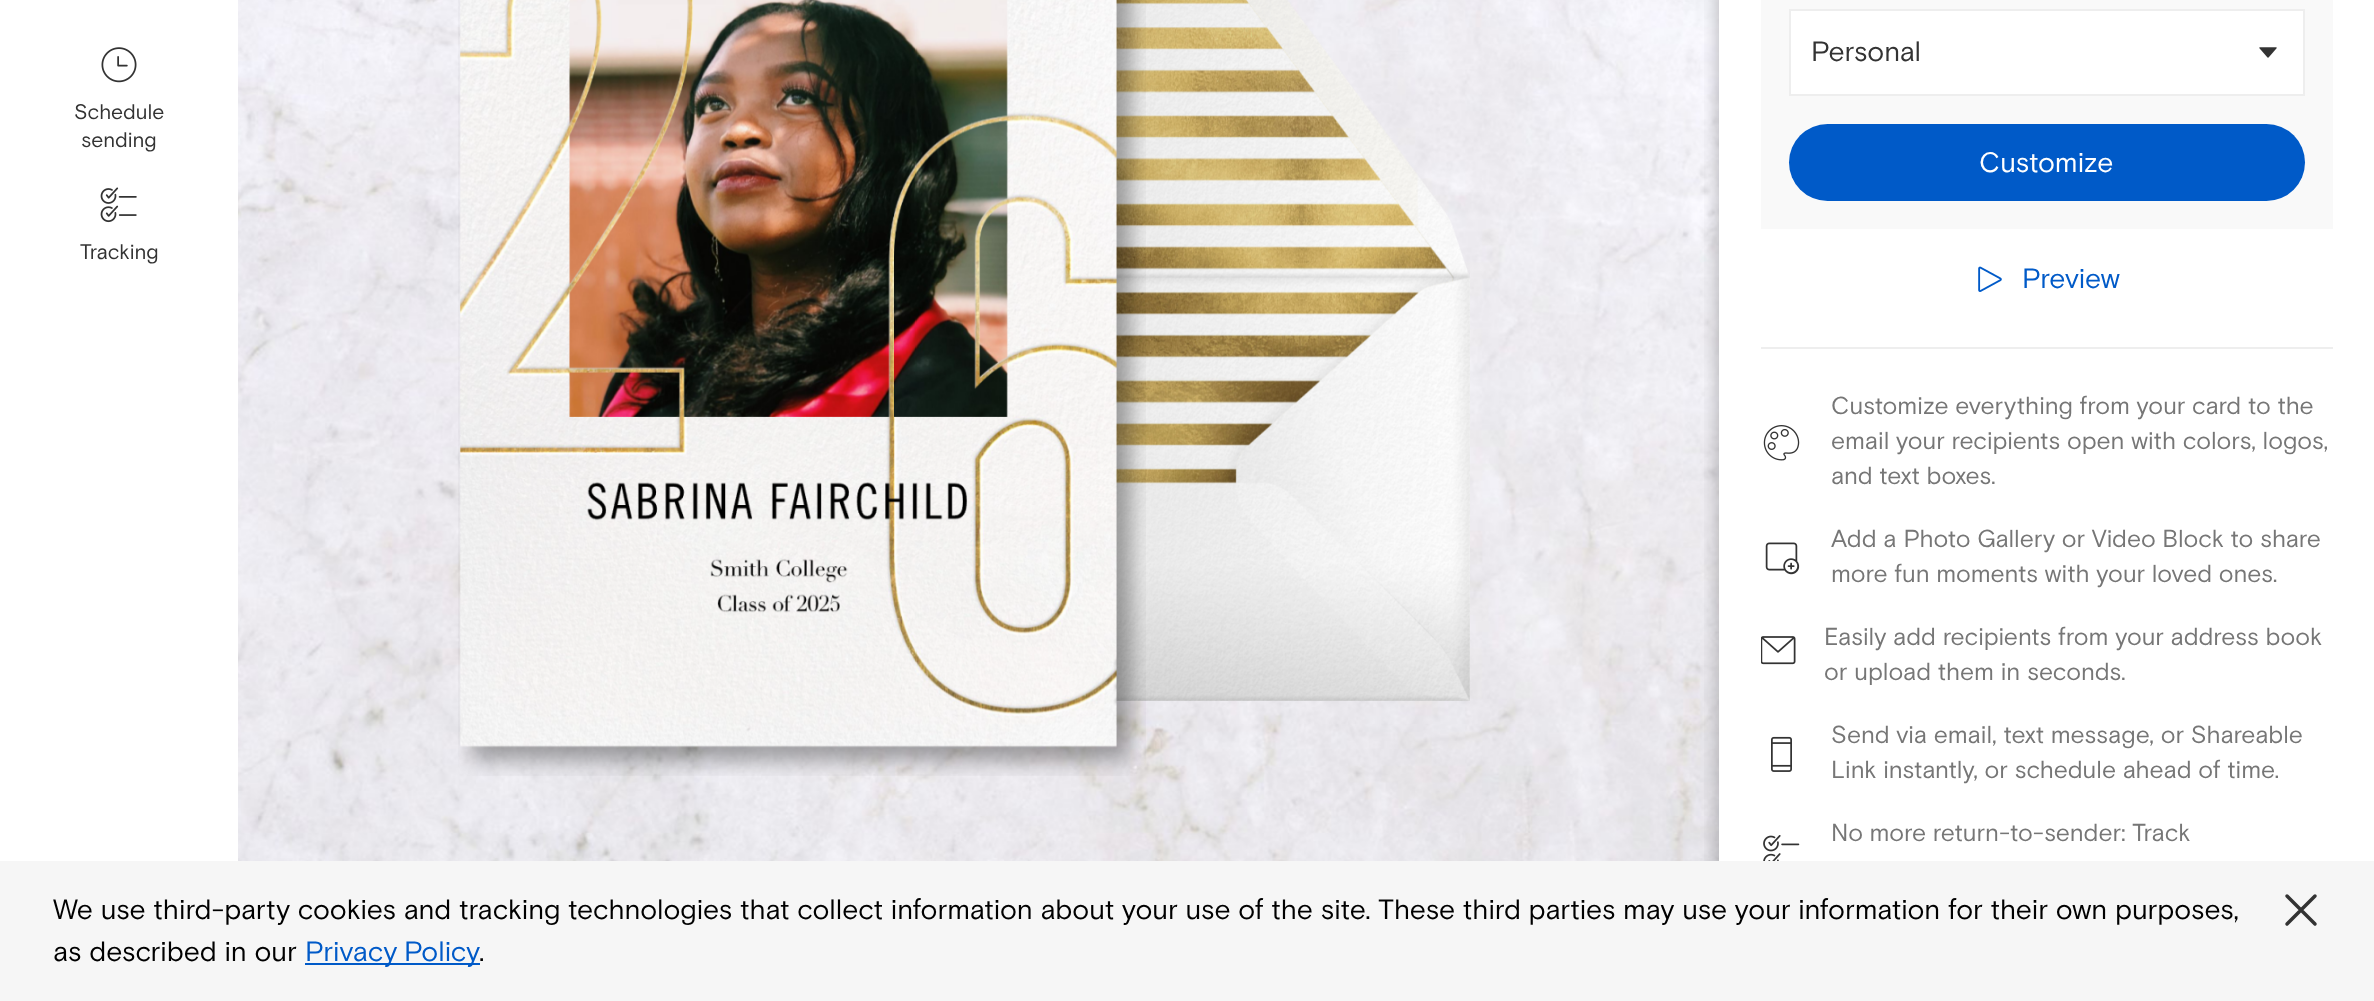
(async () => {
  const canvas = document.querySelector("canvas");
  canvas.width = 2374;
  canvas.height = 1001;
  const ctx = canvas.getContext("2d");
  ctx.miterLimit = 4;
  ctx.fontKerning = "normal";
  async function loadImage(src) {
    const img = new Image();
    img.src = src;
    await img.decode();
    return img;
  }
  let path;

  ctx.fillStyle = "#ffffff";
  ctx.fillRect(0, 0, 2374, 1001);
  ctx.drawImage(await loadImage("img/1.png"), 101, 47, 36, 36);
  ctx.drawImage(await loadImage("img/2.png"), 100, 187, 37, 36);
  ctx.drawImage(await loadImage("img/3.png"), 238, 0, 1481, 861);
  ctx.drawImage(await loadImage("img/5.png"), 1115, 0, 355, 701);
  ctx.drawImage(await loadImage("img/4.png"), 458, 0, 688, 776);
  ctx.save();
  ctx.beginPath();
  ctx.rect(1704, 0, 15, 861);
  ctx.clip();
  ctx.fillStyle = "rgba(0, 0, 0, 0.25)";
  ctx.filter = "blur(9px)";
  ctx.beginPath();
  ctx.rect(1717, -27, 656, 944);
  ctx.fill();
  ctx.filter = "none";
  ctx.restore();
  ctx.fillStyle = "#f9f9f9";
  ctx.fillRect(1761, 0, 572, 229);
  ctx.fillStyle = "#ffffff";
  ctx.beginPath();
  ctx.rect(1790, 10, 514, 85);
  ctx.fill();
  ctx.strokeStyle = "#eeeeee";
  ctx.lineWidth = 2;
  ctx.stroke();
  ctx.drawImage(await loadImage("img/6.png"), 2259, 47, 18, 11);
  ctx.fillStyle = "#005ac8";
  ctx.beginPath();
  ctx.roundRect(1789, 124, 516, 77, 38.5);
  ctx.fill();
  ctx.drawImage(await loadImage("img/7.png"), 1978, 266, 24, 26);
  ctx.fillStyle = "#eeeeee";
  ctx.fillRect(1761, 347, 572, 2);
  ctx.drawImage(await loadImage("img/8.png"), 1763, 425, 37, 36);
  ctx.drawImage(await loadImage("img/9.png"), 1765, 542, 35, 33);
  ctx.drawImage(await loadImage("img/10.png"), 1761, 636, 35, 29);
  ctx.drawImage(await loadImage("img/11.png"), 1771, 736, 21, 36);
  ctx.drawImage(await loadImage("img/12.png"), 1763, 835, 37, 26);
  ctx.fillStyle = "#f6f6f6";
  ctx.fillRect(0, 861, 2374, 140);
  ctx.fillStyle = "#005ac8";
  ctx.fillRect(305, 963, 175, 2);
  path = new Path2D("M2287 924L2315 896M2287 896L2315 924");
  ctx.strokeStyle = "#333333";
  ctx.lineWidth = 3.5;
  ctx.lineCap = "round";
  ctx.lineJoin = "round";
  ctx.stroke(path);
  ctx.font = "21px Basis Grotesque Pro";
  ctx.fillStyle = "#333333";
  for (const [text, x, y] of [
    ["Schedule", 74, 119],
    ["sending", 81, 147],
    ["Tracking", 80, 259],
  ]) {
    ctx.fillText(text, x, y);
  }
  ctx.font = "28px Basis Grotesque Pro";
  ctx.fillText("Personal", 1811, 61);
  ctx.fillStyle = "#ffffff";
  ctx.fillText("Customize", 1979, 172);
  ctx.fillStyle = "#005ac8";
  ctx.fillText("Preview", 2022, 288);
  ctx.font = "24.5px Basis Grotesque Pro";
  ctx.fillStyle = "#767676";
  for (const [text, x, y] of [
    ["Customize everything from your card to the", 1831, 414],
    ["email your recipients open with colors, logos,", 1831, 449],
    ["and text boxes.", 1831, 484],
    ["Add a Photo Gallery or Video Block to share", 1831, 547],
    ["more fun moments with your loved ones.", 1831, 582],
    ["Easily add recipients from your address book", 1824, 645],
    ["or upload them in seconds.", 1824, 680],
    ["Send via email, text message, or Shareable", 1831, 743],
    ["Link instantly, or schedule ahead of time.", 1831, 778],
    ["No more return-to-sender: Track", 1831, 841],
  ]) {
    ctx.fillText(text, x, y);
  }
  ctx.font = "28px Basis Grotesque Pro";
  ctx.fillStyle = "#000000";
  ctx.fillText("We use third-party cookies and tracking technologies that collect information about your use of the site. These third parties may use your information for their own purposes,", 53, 919);
  ctx.fillText("as described in our", 53, 961);
  ctx.wordSpacing = "-1px";
  ctx.fillStyle = "#005ac8";
  ctx.fillText("Privacy Policy", 305, 961);
  ctx.wordSpacing = "0px";
  ctx.fillStyle = "#000000";
  ctx.fillText(".", 479, 961);
})();
